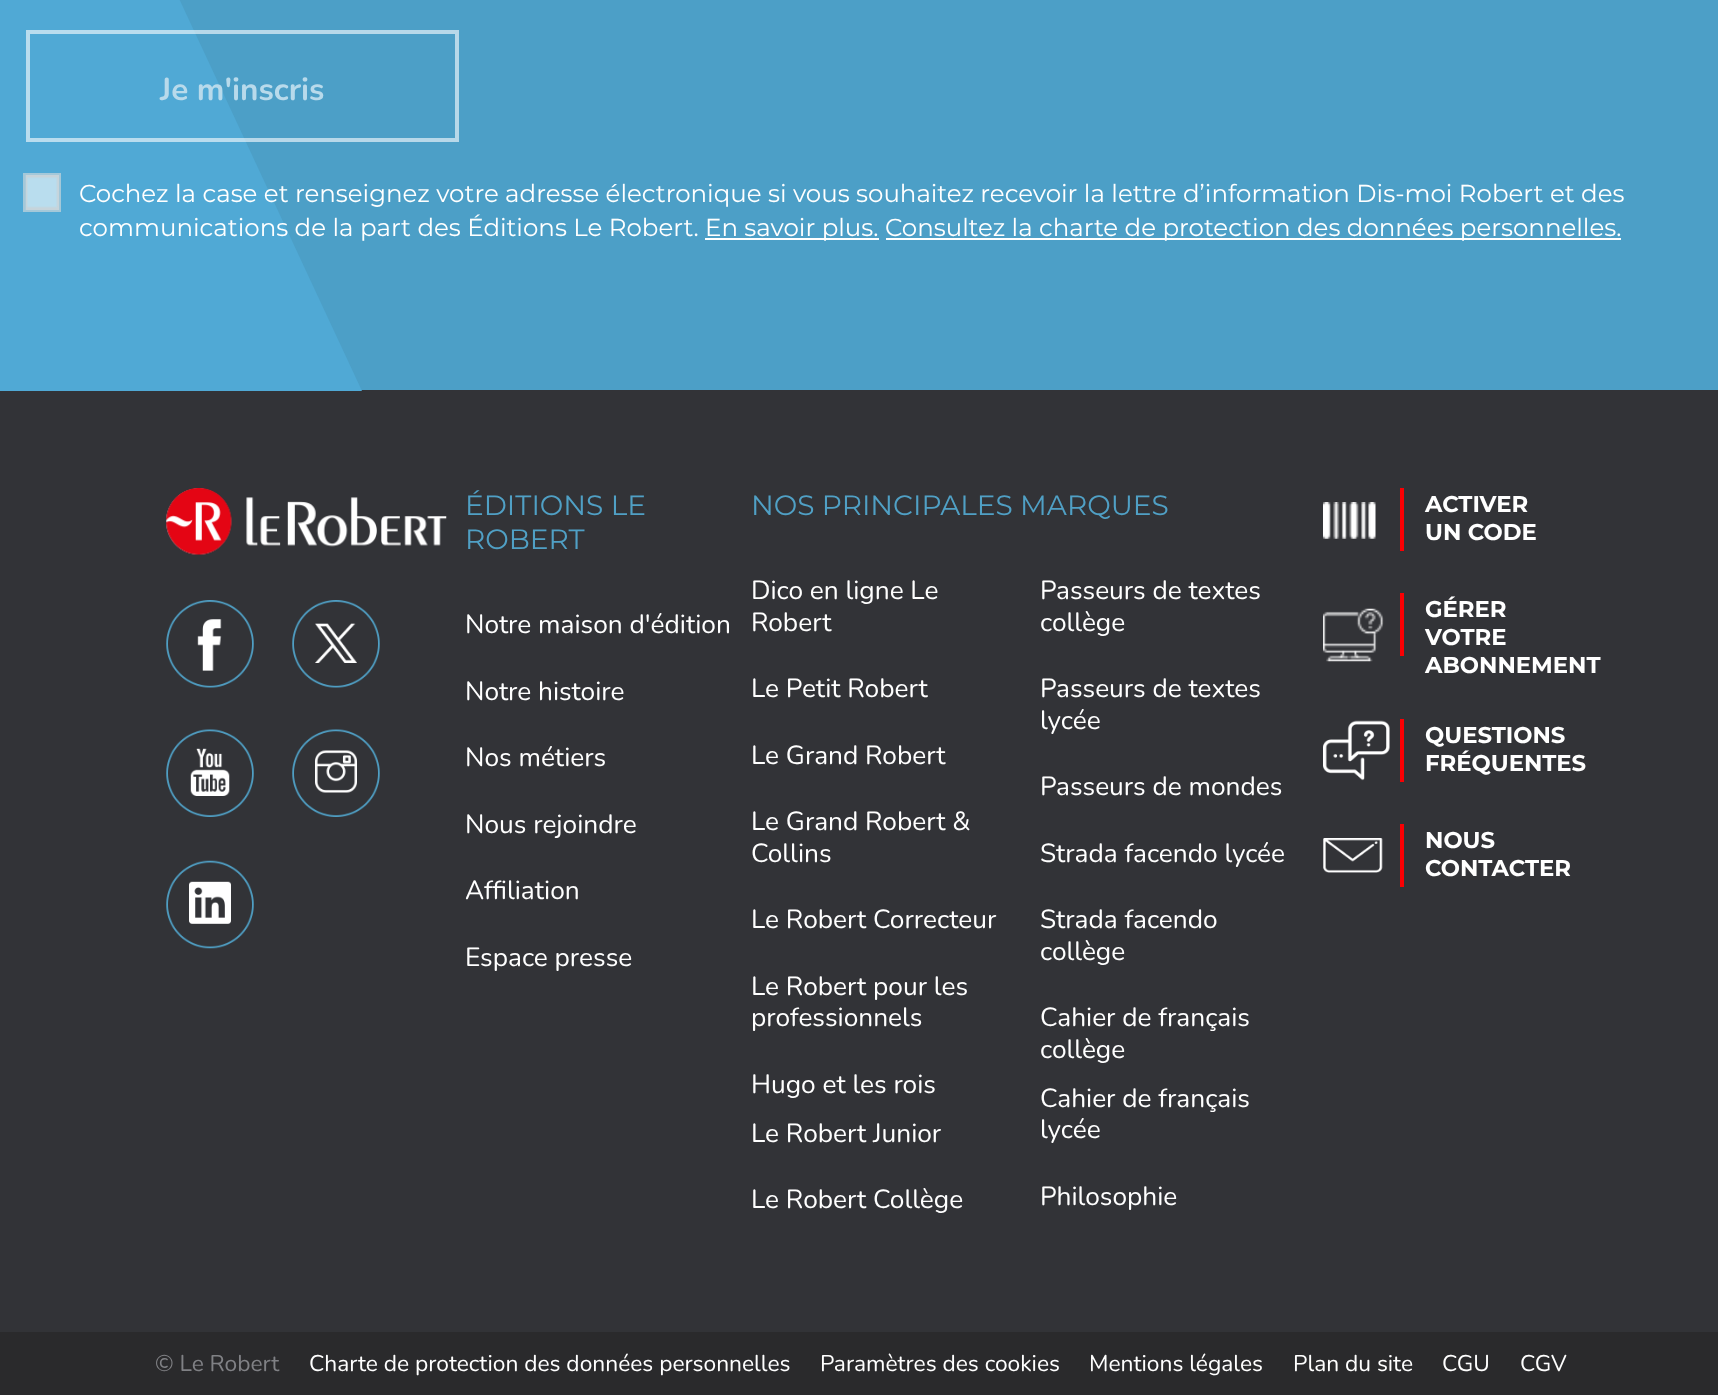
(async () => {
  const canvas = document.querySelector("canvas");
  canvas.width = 1718;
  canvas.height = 1395;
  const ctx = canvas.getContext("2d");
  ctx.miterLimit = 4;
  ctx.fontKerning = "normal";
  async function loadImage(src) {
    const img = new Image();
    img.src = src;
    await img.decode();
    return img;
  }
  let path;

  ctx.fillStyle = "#323337";
  ctx.fillRect(0, 0, 1718, 1395);
  ctx.fillStyle = "#4c9fc7";
  ctx.fillRect(179, 0, 1539, 390);
  ctx.fillStyle = "#50a9d5";
  path = new Path2D("M-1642-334H24L362 391H-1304Z");
  ctx.fill(path);
  ctx.strokeStyle = "rgba(255, 255, 255, 0.6)";
  ctx.lineWidth = 4;
  ctx.strokeRect(28, 32, 429, 108);
  ctx.fillStyle = "#b9ddee";
  ctx.fillRect(25, 175, 34, 35);
  ctx.drawImage(await loadImage("img/1.png"), 25, 175, 34, 35);
  ctx.strokeStyle = "#a4c8d9";
  ctx.lineWidth = 2;
  ctx.strokeRect(24, 174, 36, 37);
  ctx.fillStyle = "#ffffff";
  ctx.fillRect(705, 238, 174, 2);
  ctx.fillRect(886, 238, 735, 2);
  ctx.drawImage(await loadImage("img/2.png"), 166, 488, 281, 67);
  ctx.drawImage(await loadImage("img/3.png"), 166, 600, 88, 88);
  ctx.drawImage(await loadImage("img/4.png"), 292, 600, 88, 88);
  ctx.drawImage(await loadImage("img/5.png"), 166, 729, 88, 88);
  ctx.drawImage(await loadImage("img/6.png"), 292, 729, 88, 88);
  ctx.drawImage(await loadImage("img/7.png"), 166, 860, 88, 89);
  ctx.drawImage(await loadImage("img/8.png"), 1323, 502, 53, 37);
  ctx.fillStyle = "#fa0003";
  ctx.fillRect(1400, 488, 4, 63);
  ctx.drawImage(await loadImage("img/9.png"), 1323, 608, 61, 54);
  ctx.fillRect(1400, 593, 4, 63);
  ctx.drawImage(await loadImage("img/10.png"), 1323, 720, 67, 61);
  ctx.fillRect(1400, 719, 4, 63);
  ctx.drawImage(await loadImage("img/11.png"), 1323, 838, 60, 35);
  ctx.fillRect(1400, 824, 4, 63);
  ctx.fillStyle = "#2a2a2c";
  ctx.fillRect(0, 1332, 1718, 63);
  ctx.font = "bold 31.5px Nunito";
  ctx.fillStyle = "#b8daeb";
  ctx.fillText("Je m'inscris", 160, 100);
  ctx.font = "24.5px Montserrat";
  ctx.fillStyle = "#ffffff";
  for (const [text, x, y] of [
    ["Cochez la case et renseignez votre adresse électronique si vous souhaitez recevoir la lettre d’information Dis-moi Robert et des", 79, 202],
    ["communications de la part des Éditions Le Robert.", 79, 236],
    ["En savoir plus.", 705, 236],
    ["Consultez la charte de protection des données personnelles.", 885, 236],
  ]) {
    ctx.fillText(text, x, y);
  }
  ctx.font = "28px Montserrat";
  ctx.fillStyle = "#50a0c5";
  ctx.fillText("ÉDITIONS LE", 465, 515);
  ctx.fillText("ROBERT", 465, 549);
  ctx.font = "26.25px Nunito";
  ctx.fillStyle = "#ffffff";
  for (const [text, x, y] of [
    ["Notre maison d'édition", 465, 633],
    ["Notre histoire", 465, 700],
    ["Nos métiers", 465, 766],
    ["Nous rejoindre", 465, 833],
    ["Affiliation", 465, 899],
    ["Espace presse", 465, 966],
  ]) {
    ctx.fillText(text, x, y);
  }
  ctx.font = "28px Montserrat";
  ctx.fillStyle = "#50a0c5";
  ctx.fillText("NOS PRINCIPALES MARQUES", 751, 515);
  ctx.font = "26.25px Nunito";
  ctx.fillStyle = "#ffffff";
  for (const [text, x, y] of [
    ["Dico en ligne Le", 751, 599],
    ["Robert", 751, 631],
    ["Passeurs de textes", 1040, 599],
    ["collège", 1040, 631],
    ["Le Petit Robert", 751, 697],
    ["Passeurs de textes", 1040, 697],
    ["lycée", 1040, 729],
    ["Le Grand Robert", 751, 764],
    ["Passeurs de mondes", 1040, 795],
    ["Le Grand Robert &", 751, 830],
    ["Collins", 751, 862],
    ["Strada facendo lycée", 1040, 862],
    ["Le Robert Correcteur", 751, 928],
    ["Strada facendo", 1040, 928],
    ["collège", 1040, 960],
    ["Le Robert pour les", 751, 995],
    ["professionnels", 751, 1026],
    ["Cahier de français", 1040, 1026],
    ["collège", 1040, 1058],
    ["Hugo et les rois", 751, 1093],
    ["Cahier de français", 1040, 1107],
    ["lycée", 1040, 1138],
    ["Le Robert Junior", 751, 1142],
    ["Le Robert Collège", 751, 1208],
    ["Philosophie", 1040, 1205],
  ]) {
    ctx.fillText(text, x, y);
  }
  ctx.font = "bold 22.75px Montserrat";
  for (const [text, x, y] of [
    ["ACTIVER", 1425, 512],
    ["UN CODE", 1425, 540],
    ["GÉRER", 1425, 617],
    ["VOTRE", 1425, 645],
    ["ABONNEMENT", 1425, 673],
    ["QUESTIONS", 1425, 743],
    ["FRÉQUENTES", 1425, 771],
    ["NOUS", 1425, 848],
    ["CONTACTER", 1425, 876],
  ]) {
    ctx.fillText(text, x, y);
  }
  ctx.font = "22.75px Nunito";
  ctx.fillStyle = "#808185";
  ctx.fillText("© Le Robert", 155, 1371);
  ctx.fillStyle = "#ffffff";
  for (const [text, x, y] of [
    ["Charte de protection des données personnelles", 309, 1371],
    ["Paramètres des cookies", 820, 1371],
    ["Mentions légales", 1089, 1371],
    ["Plan du site", 1293, 1371],
    ["CGU", 1442, 1371],
    ["CGV", 1520, 1371],
  ]) {
    ctx.fillText(text, x, y);
  }
})();
